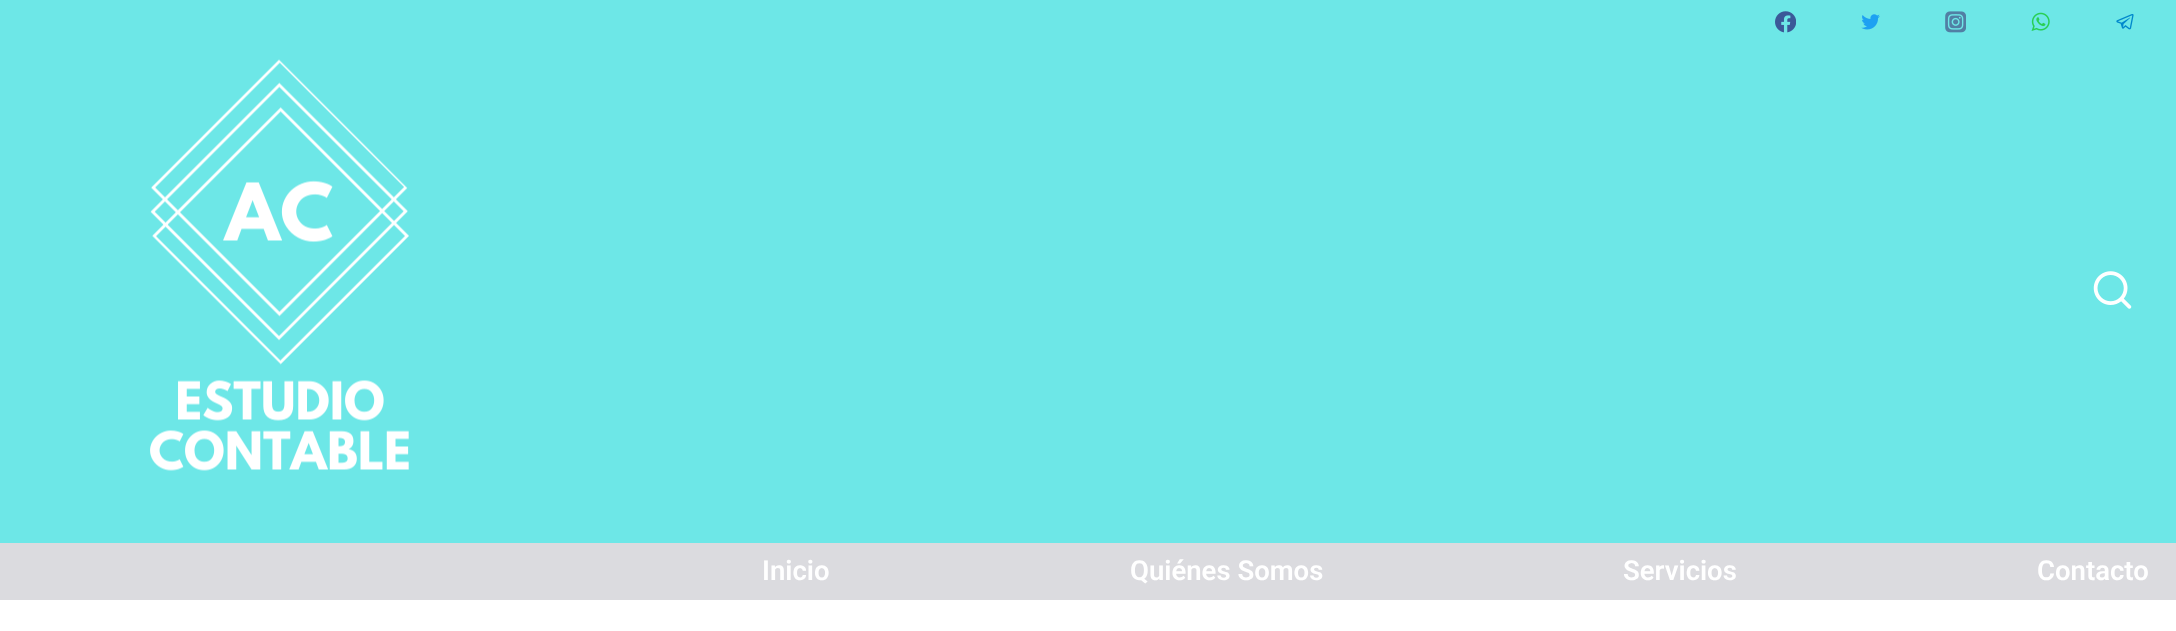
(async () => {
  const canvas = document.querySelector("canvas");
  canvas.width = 2176;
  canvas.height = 631;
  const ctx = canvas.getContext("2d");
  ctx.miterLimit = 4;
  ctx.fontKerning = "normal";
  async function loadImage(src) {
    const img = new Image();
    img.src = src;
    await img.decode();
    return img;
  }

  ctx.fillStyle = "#ffffff";
  ctx.fillRect(0, 0, 2176, 631);
  ctx.fillStyle = "#6de7e7";
  ctx.fillRect(0, 0, 2176, 543);
  ctx.drawImage(await loadImage("img/1.png"), 1775, 11, 21, 22);
  ctx.drawImage(await loadImage("img/2.png"), 1861, 14, 19, 16);
  ctx.drawImage(await loadImage("img/3.png"), 1945, 11, 21, 22);
  ctx.drawImage(await loadImage("img/4.png"), 2031, 12, 19, 19);
  ctx.drawImage(await loadImage("img/5.png"), 2116, 14, 18, 16);
  ctx.drawImage(await loadImage("img/6.png"), 150, 59, 259, 412);
  ctx.drawImage(await loadImage("img/7.png"), 2093, 271, 39, 38);
  ctx.fillStyle = "#dbdbdf";
  ctx.fillRect(0, 543, 2176, 57);
  ctx.font = "600 27.5px Roboto";
  ctx.fillStyle = "#ffffff";
  for (const [text, x, y] of [
    ["Inicio", 762, 580],
    ["Quiénes Somos", 1130, 580],
    ["Servicios", 1623, 580],
    ["Contacto", 2037, 580],
  ]) {
    ctx.fillText(text, x, y);
  }
})();
